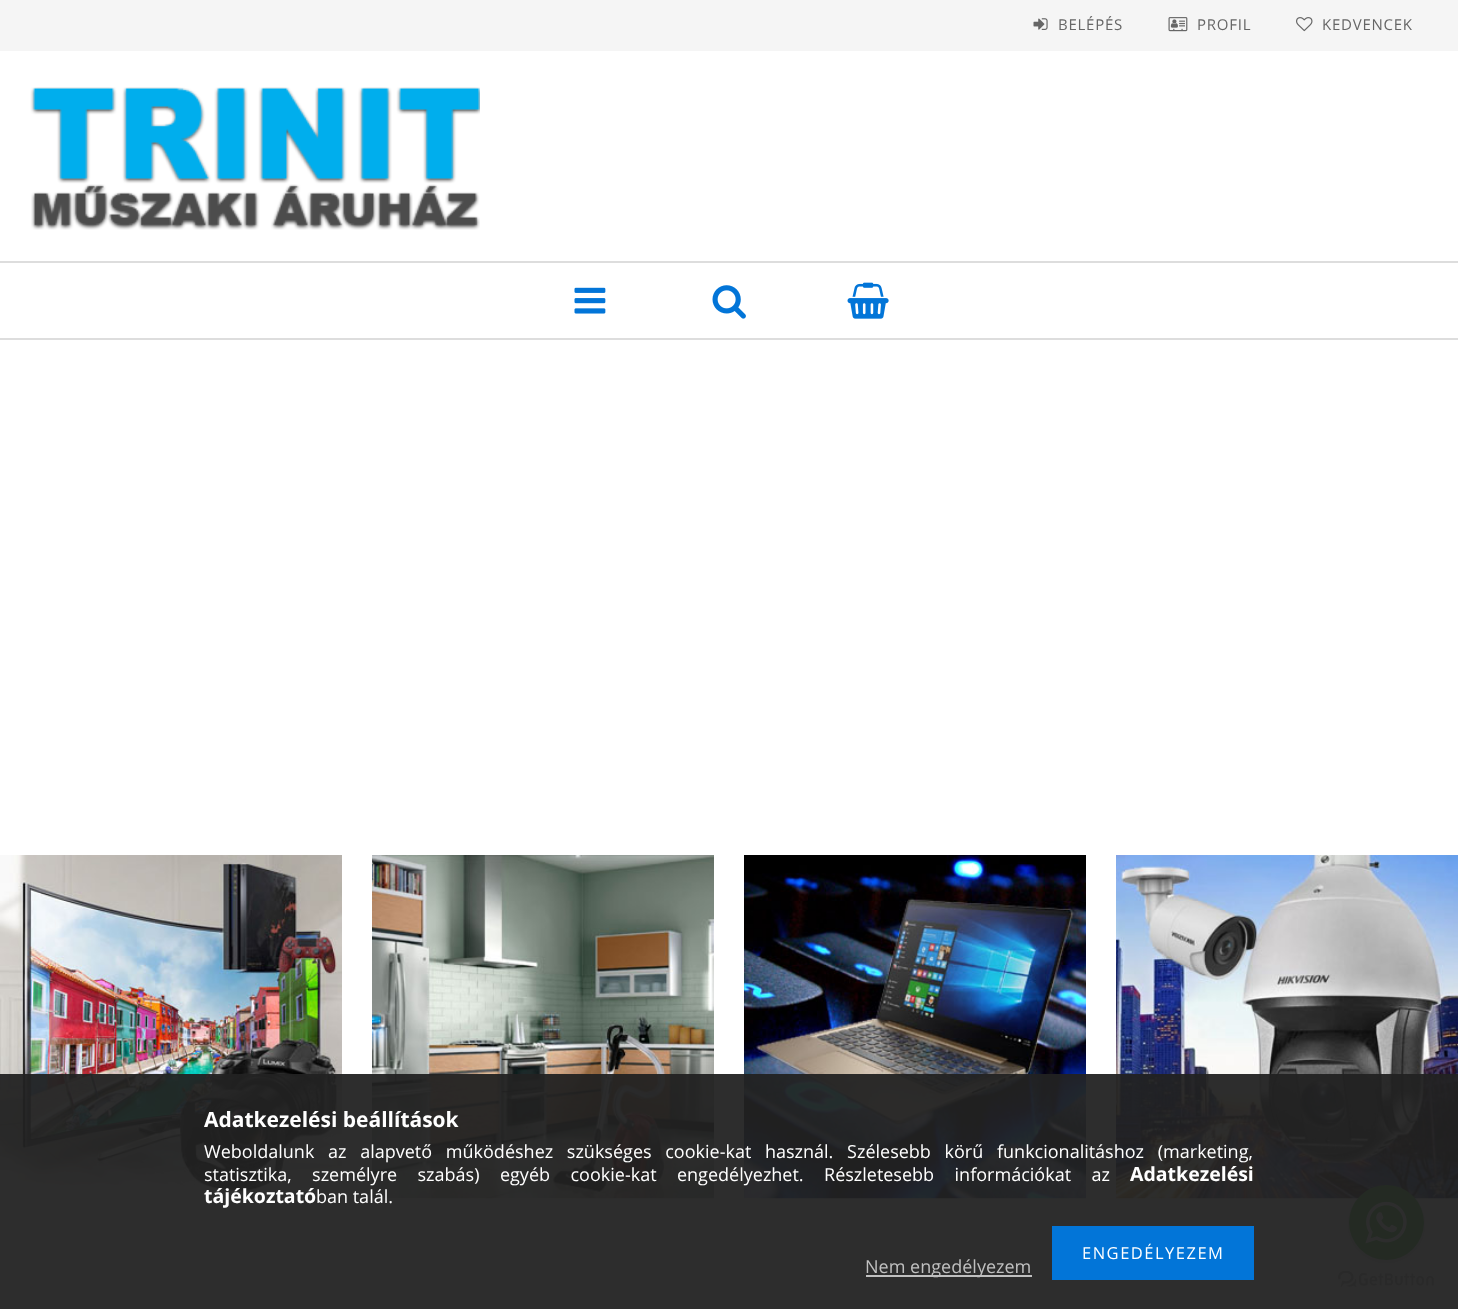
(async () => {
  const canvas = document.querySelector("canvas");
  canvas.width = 1458;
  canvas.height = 1309;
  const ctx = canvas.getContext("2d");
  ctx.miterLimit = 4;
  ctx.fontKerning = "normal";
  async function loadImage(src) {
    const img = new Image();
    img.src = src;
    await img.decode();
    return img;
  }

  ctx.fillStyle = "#ffffff";
  ctx.fillRect(0, 0, 1458, 1309);
  ctx.fillStyle = "#f5f5f5";
  ctx.fillRect(0, 0, 1458, 51);
  ctx.drawImage(await loadImage("img/1.png"), 1033, 18, 15, 12);
  ctx.drawImage(await loadImage("img/2.png"), 1168, 17, 20, 15);
  ctx.drawImage(await loadImage("img/3.png"), 1296, 17, 17, 15);
  ctx.drawImage(await loadImage("img/4.png"), 30, 87, 450, 143);
  ctx.fillStyle = "#dddddd";
  ctx.fillRect(0, 261, 1458, 2);
  ctx.fillRect(0, 338, 1458, 2);
  ctx.drawImage(await loadImage("img/5.png"), 574, 287, 32, 27);
  ctx.drawImage(await loadImage("img/6.png"), 712, 285, 34, 34);
  ctx.drawImage(await loadImage("img/7.png"), 847, 282, 42, 37);
  ctx.drawImage(await loadImage("img/8.png"), 0, 855, 342, 343);
  ctx.drawImage(await loadImage("img/9.png"), 372, 855, 342, 344);
  ctx.drawImage(await loadImage("img/10.png"), 744, 855, 342, 344);
  ctx.drawImage(await loadImage("img/11.png"), 1116, 855, 342, 344);
  ctx.drawImage(await loadImage("img/13.png"), 1338, 1271, 96, 16);
  ctx.fillStyle = "rgba(136, 136, 136, 0.4)";
  ctx.filter = "blur(5px)";
  ctx.beginPath();
  ctx.roundRect(1349, 1187, 75, 75, 37.5);
  ctx.fill();
  ctx.filter = "none";
  ctx.fillStyle = "#4dc247";
  ctx.beginPath();
  ctx.arc(1386.5, 1222.5, 37.5, 0, Math.PI * 2);
  ctx.fill();
  ctx.drawImage(await loadImage("img/12.png"), 1365, 1201, 42, 43);
  for (const [x, y, w, h, color] of [
    [0, 1074, 1458, 235, "rgba(34, 34, 34, 0.95)"],
    [1052, 1226, 202, 54, "#0275d8"],
    [866, 1275, 166, 2, "#c0c0c0"],
  ]) {
    ctx.fillStyle = color;
    ctx.fillRect(x, y, w, h);
  }
  ctx.letterSpacing = "0.75px";
  ctx.font = "15px Open Sans";
  ctx.fillStyle = "#666666";
  for (const [text, x, y] of [
    ["BELÉPÉS", 1058, 30],
    ["PROFIL", 1197, 30],
    ["KEDVENCEK", 1322, 30],
  ]) {
    ctx.fillText(text, x, y);
  }
  ctx.letterSpacing = "0px";
  ctx.font = "bold 21px Open Sans";
  ctx.fillStyle = "#ffffff";
  ctx.fillText("Adatkezelési beállítások", 204, 1127);
  ctx.wordSpacing = "9px";
  ctx.font = "18px Open Sans";
  ctx.fillText("Weboldalunk az alapvető működéshez szükséges cookie-kat használ. Szélesebb körű funkcionalitáshoz (marketing,", 204, 1158);
  ctx.wordSpacing = "15.75px";
  ctx.fillText("statisztika, személyre szabás) egyéb cookie-kat engedélyezhet. Részletesebb információkat az", 204, 1181);
  ctx.wordSpacing = "0px";
  ctx.font = "bold 19.5px Open Sans";
  ctx.fillText("Adatkezelési", 1130, 1181);
  ctx.fillText("tájékoztató", 204, 1203);
  ctx.font = "18px Open Sans";
  ctx.fillText("ban talál.", 316, 1203);
  ctx.letterSpacing = "1.5px";
  ctx.font = "16.5px Open Sans";
  ctx.fillText("ENGEDÉLYEZEM", 1082, 1259);
  ctx.letterSpacing = "0px";
  ctx.font = "18px Open Sans";
  ctx.fillStyle = "#c0c0c0";
  ctx.fillText("Nem engedélyezem", 865, 1273);
})();
